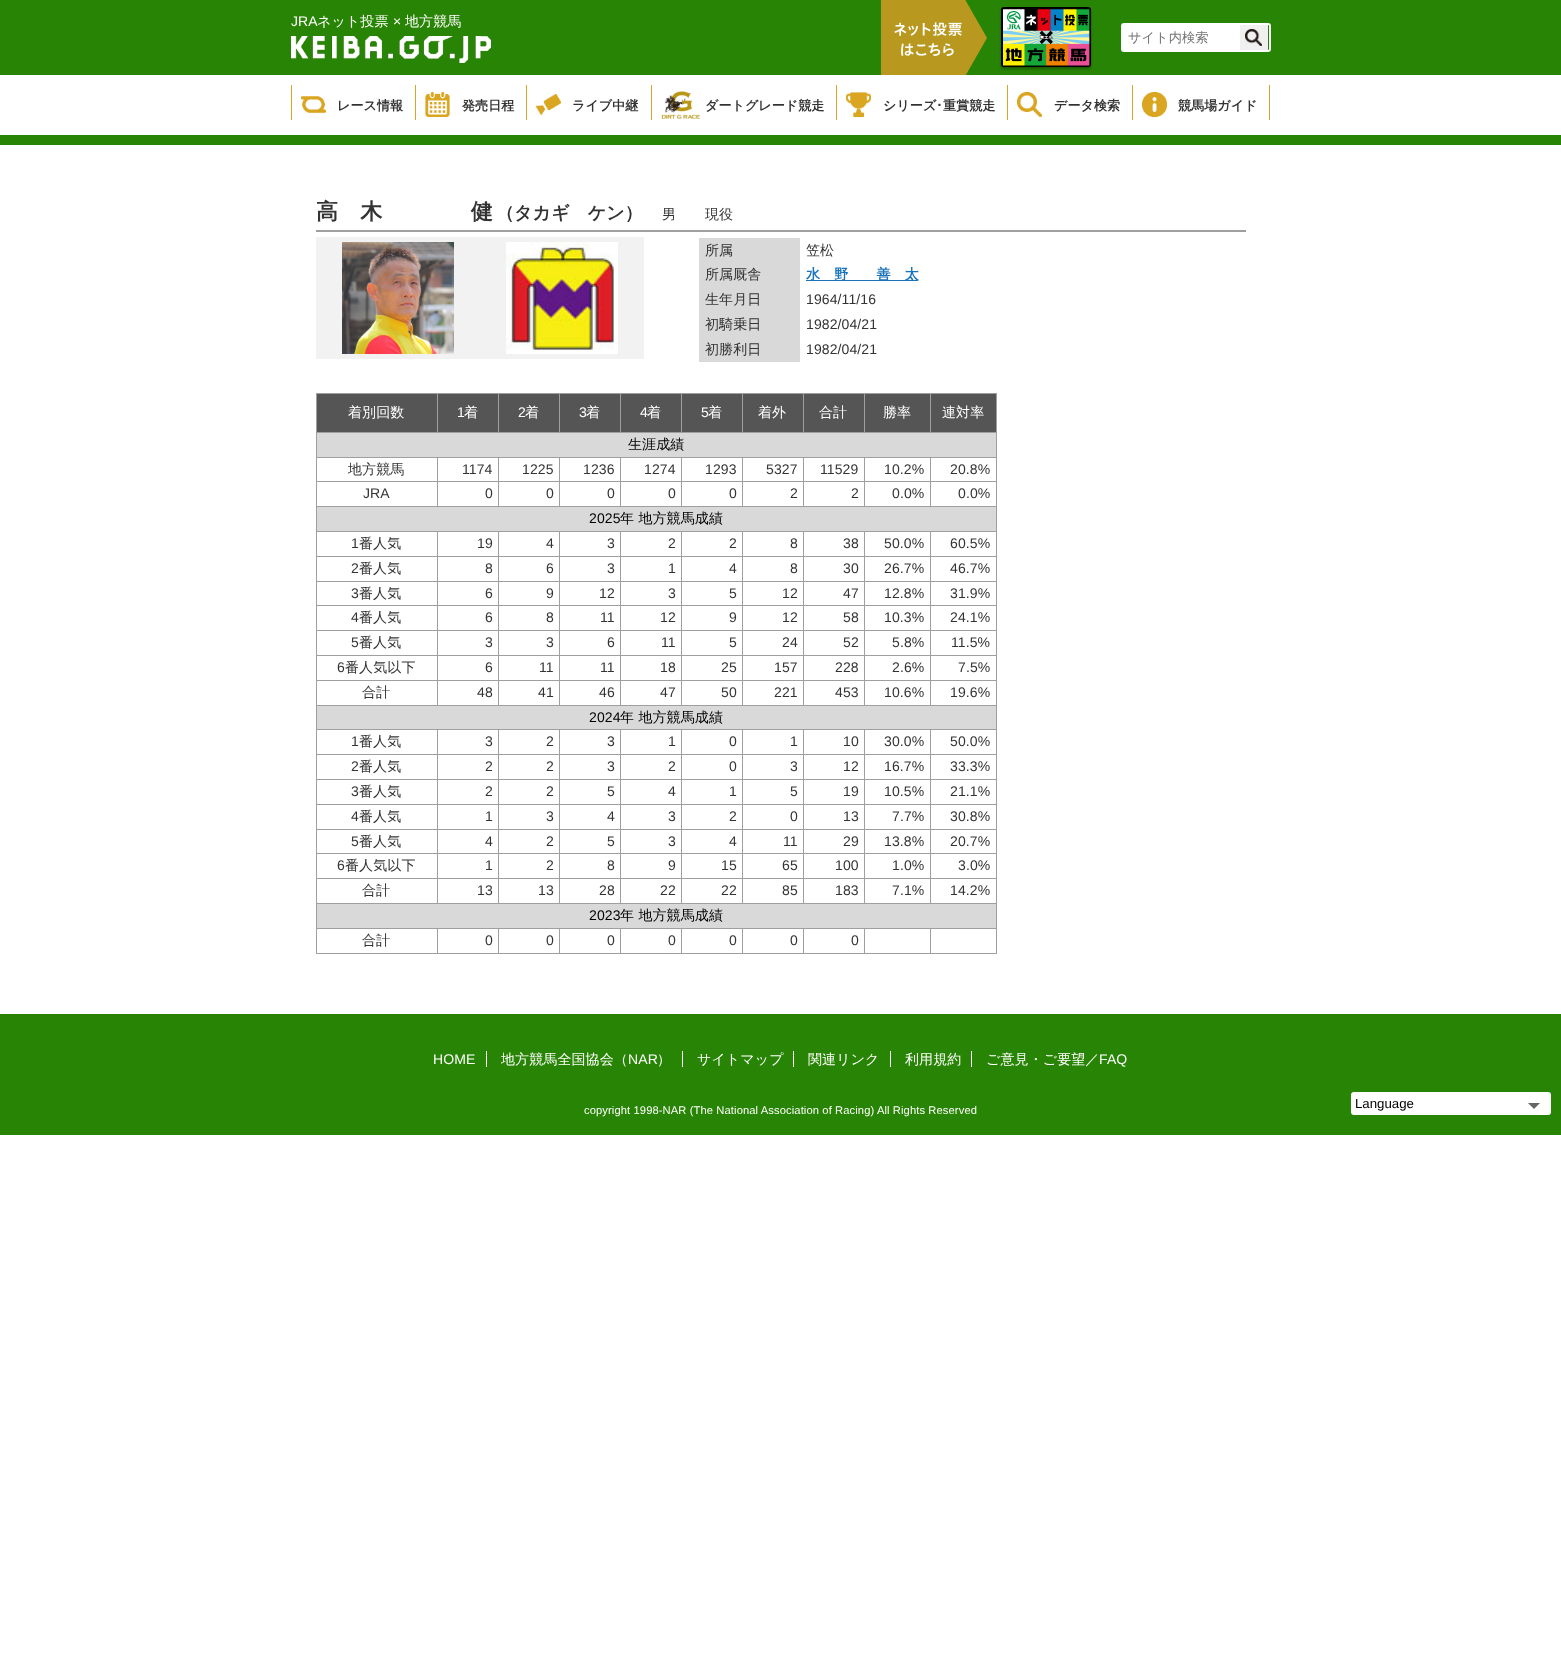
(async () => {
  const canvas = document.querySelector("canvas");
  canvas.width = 1561;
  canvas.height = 1658;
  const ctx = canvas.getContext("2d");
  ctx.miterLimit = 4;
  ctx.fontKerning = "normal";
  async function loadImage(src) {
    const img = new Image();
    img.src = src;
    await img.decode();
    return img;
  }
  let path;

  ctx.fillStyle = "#ffffff";
  ctx.fillRect(0, 0, 1561, 1658);
  ctx.fillStyle = "#288404";
  ctx.fillRect(0, 0, 1561, 75);
  ctx.drawImage(await loadImage("img/1.png"), 291, 36, 200, 27);
  ctx.drawImage(await loadImage("img/2.png"), 881, 0, 106, 75);
  ctx.fillStyle = "rgba(0, 0, 0, 0.3)";
  ctx.filter = "blur(1px)";
  ctx.beginPath();
  ctx.roundRect(1001, 9, 90, 60, 3);
  ctx.fill();
  ctx.filter = "none";
  ctx.drawImage(await loadImage("img/3.png"), 1001, 7, 90, 60);
  ctx.beginPath();
  ctx.roundRect(1122, 24, 148, 27, 2);
  ctx.strokeStyle = "#ffffff";
  ctx.lineWidth = 2;
  ctx.stroke();
  ctx.fillStyle = "#ffffff";
  ctx.fillRect(1123, 25, 117, 25);
  ctx.fillStyle = "#f0f0f0";
  ctx.fillRect(1240, 25, 28, 25);
  ctx.drawImage(await loadImage("img/4.png"), 1245, 29, 17, 17);
  ctx.fillStyle = "#daa520";
  ctx.fillRect(291, 85, 1, 35);
  ctx.drawImage(await loadImage("img/5.png"), 301, 96, 25, 18);
  ctx.fillRect(415, 85, 1, 35);
  ctx.drawImage(await loadImage("img/6.png"), 425, 92, 25, 25);
  ctx.fillRect(526, 85, 1, 35);
  ctx.drawImage(await loadImage("img/7.png"), 536, 94, 25, 21);
  ctx.fillRect(651, 85, 1, 35);
  ctx.drawImage(await loadImage("img/8.png"), 661, 91, 40, 28);
  ctx.fillRect(836, 85, 1, 35);
  ctx.drawImage(await loadImage("img/9.png"), 846, 92, 25, 25);
  ctx.fillRect(1007, 85, 1, 35);
  ctx.drawImage(await loadImage("img/10.png"), 1017, 92, 25, 25);
  ctx.fillRect(1269, 85, 1, 35);
  ctx.fillRect(1132, 85, 1, 35);
  ctx.drawImage(await loadImage("img/11.png"), 1142, 92, 25, 25);
  for (const [x, y, w, h, color] of [
    [0, 135, 1561, 10, "#288404"],
    [316, 230, 930, 2, "#9f9f9f"],
    [316, 237, 328, 122, "#f2f2f2"],
  ]) {
    ctx.fillStyle = color;
    ctx.fillRect(x, y, w, h);
  }
  ctx.drawImage(await loadImage("img/12.png"), 342, 242, 112, 112);
  ctx.drawImage(await loadImage("img/13.png"), 506, 242, 112, 112);
  for (const [x, y, w, h, color] of [
    [699, 238, 101, 124, "#d9d9d9"],
    [806, 280, 112, 1, "#1a74bc"],
    [316, 393, 681, 1, "#9f9f9f"],
    [996, 393, 1, 561, "#9f9f9f"],
    [316, 953, 681, 1, "#9f9f9f"],
    [316, 393, 1, 561, "#9f9f9f"],
    [317, 394, 120, 38, "#555555"],
    [316, 432, 681, 1, "#9f9f9f"],
    [437, 393, 1, 40, "#9f9f9f"],
    [438, 394, 60, 38, "#555555"],
    [498, 393, 1, 40, "#9f9f9f"],
    [499, 394, 60, 38, "#555555"],
    [559, 393, 1, 40, "#9f9f9f"],
    [560, 394, 60, 38, "#555555"],
    [620, 393, 1, 40, "#9f9f9f"],
    [621, 394, 60, 38, "#555555"],
    [681, 393, 1, 40, "#9f9f9f"],
    [682, 394, 60, 38, "#555555"],
    [742, 393, 1, 40, "#9f9f9f"],
    [743, 394, 60, 38, "#555555"],
    [803, 393, 1, 40, "#9f9f9f"],
    [804, 394, 60, 38, "#555555"],
    [864, 393, 1, 40, "#9f9f9f"],
    [865, 394, 65, 38, "#555555"],
    [930, 393, 1, 40, "#9f9f9f"],
    [931, 394, 65, 38, "#555555"],
    [317, 433, 679, 24, "#d9d9d9"],
    [930, 457, 67, 1, "#9f9f9f"],
    [930, 481, 67, 1, "#9f9f9f"],
    [316, 506, 681, 1, "#9f9f9f"],
    [930, 481, 1, 26, "#9f9f9f"],
    [864, 481, 67, 1, "#9f9f9f"],
    [930, 457, 1, 25, "#9f9f9f"],
    [864, 457, 67, 1, "#9f9f9f"],
    [864, 481, 1, 26, "#9f9f9f"],
    [803, 481, 62, 1, "#9f9f9f"],
    [864, 457, 1, 25, "#9f9f9f"],
    [803, 457, 62, 1, "#9f9f9f"],
    [803, 481, 1, 26, "#9f9f9f"],
    [742, 481, 62, 1, "#9f9f9f"],
    [803, 457, 1, 25, "#9f9f9f"],
    [742, 457, 62, 1, "#9f9f9f"],
    [742, 481, 1, 26, "#9f9f9f"],
    [681, 481, 62, 1, "#9f9f9f"],
    [742, 457, 1, 25, "#9f9f9f"],
    [681, 457, 62, 1, "#9f9f9f"],
    [681, 481, 1, 26, "#9f9f9f"],
    [620, 481, 62, 1, "#9f9f9f"],
    [681, 457, 1, 25, "#9f9f9f"],
    [620, 457, 62, 1, "#9f9f9f"],
    [620, 481, 1, 26, "#9f9f9f"],
    [559, 481, 62, 1, "#9f9f9f"],
    [620, 457, 1, 25, "#9f9f9f"],
    [559, 457, 62, 1, "#9f9f9f"],
    [559, 481, 1, 26, "#9f9f9f"],
    [498, 481, 62, 1, "#9f9f9f"],
    [559, 457, 1, 25, "#9f9f9f"],
    [498, 457, 62, 1, "#9f9f9f"],
    [498, 481, 1, 26, "#9f9f9f"],
    [437, 481, 62, 1, "#9f9f9f"],
    [498, 457, 1, 25, "#9f9f9f"],
    [437, 457, 62, 1, "#9f9f9f"],
    [437, 481, 1, 26, "#9f9f9f"],
    [316, 481, 122, 1, "#9f9f9f"],
    [437, 457, 1, 25, "#9f9f9f"],
    [316, 457, 122, 1, "#9f9f9f"],
    [317, 507, 679, 24, "#d9d9d9"],
    [930, 531, 67, 1, "#9f9f9f"],
    [930, 556, 67, 1, "#9f9f9f"],
    [930, 581, 67, 1, "#9f9f9f"],
    [930, 605, 67, 1, "#9f9f9f"],
    [930, 630, 67, 1, "#9f9f9f"],
    [930, 655, 67, 1, "#9f9f9f"],
    [930, 680, 67, 1, "#9f9f9f"],
    [316, 705, 681, 1, "#9f9f9f"],
    [930, 680, 1, 26, "#9f9f9f"],
    [864, 680, 67, 1, "#9f9f9f"],
    [930, 655, 1, 26, "#9f9f9f"],
    [864, 655, 67, 1, "#9f9f9f"],
    [930, 630, 1, 26, "#9f9f9f"],
    [864, 630, 67, 1, "#9f9f9f"],
    [930, 605, 1, 26, "#9f9f9f"],
    [864, 605, 67, 1, "#9f9f9f"],
    [930, 581, 1, 25, "#9f9f9f"],
    [864, 581, 67, 1, "#9f9f9f"],
    [930, 556, 1, 26, "#9f9f9f"],
    [864, 556, 67, 1, "#9f9f9f"],
    [930, 531, 1, 26, "#9f9f9f"],
    [864, 531, 67, 1, "#9f9f9f"],
    [864, 680, 1, 26, "#9f9f9f"],
    [803, 680, 62, 1, "#9f9f9f"],
    [864, 655, 1, 26, "#9f9f9f"],
    [803, 655, 62, 1, "#9f9f9f"],
    [864, 630, 1, 26, "#9f9f9f"],
    [803, 630, 62, 1, "#9f9f9f"],
    [864, 605, 1, 26, "#9f9f9f"],
    [803, 605, 62, 1, "#9f9f9f"],
    [864, 581, 1, 25, "#9f9f9f"],
    [803, 581, 62, 1, "#9f9f9f"],
    [864, 556, 1, 26, "#9f9f9f"],
    [803, 556, 62, 1, "#9f9f9f"],
    [864, 531, 1, 26, "#9f9f9f"],
    [803, 531, 62, 1, "#9f9f9f"],
    [803, 680, 1, 26, "#9f9f9f"],
    [742, 680, 62, 1, "#9f9f9f"],
    [803, 655, 1, 26, "#9f9f9f"],
    [742, 655, 62, 1, "#9f9f9f"],
    [803, 630, 1, 26, "#9f9f9f"],
    [742, 630, 62, 1, "#9f9f9f"],
    [803, 605, 1, 26, "#9f9f9f"],
    [742, 605, 62, 1, "#9f9f9f"],
    [803, 581, 1, 25, "#9f9f9f"],
    [742, 581, 62, 1, "#9f9f9f"],
    [803, 556, 1, 26, "#9f9f9f"],
    [742, 556, 62, 1, "#9f9f9f"],
    [803, 531, 1, 26, "#9f9f9f"],
    [742, 531, 62, 1, "#9f9f9f"],
    [742, 680, 1, 26, "#9f9f9f"],
    [681, 680, 62, 1, "#9f9f9f"],
    [742, 655, 1, 26, "#9f9f9f"],
    [681, 655, 62, 1, "#9f9f9f"],
    [742, 630, 1, 26, "#9f9f9f"],
    [681, 630, 62, 1, "#9f9f9f"],
    [742, 605, 1, 26, "#9f9f9f"],
    [681, 605, 62, 1, "#9f9f9f"],
    [742, 581, 1, 25, "#9f9f9f"],
    [681, 581, 62, 1, "#9f9f9f"],
    [742, 556, 1, 26, "#9f9f9f"],
    [681, 556, 62, 1, "#9f9f9f"],
    [742, 531, 1, 26, "#9f9f9f"],
    [681, 531, 62, 1, "#9f9f9f"],
    [681, 680, 1, 26, "#9f9f9f"],
    [620, 680, 62, 1, "#9f9f9f"],
    [681, 655, 1, 26, "#9f9f9f"],
    [620, 655, 62, 1, "#9f9f9f"],
    [681, 630, 1, 26, "#9f9f9f"],
    [620, 630, 62, 1, "#9f9f9f"],
    [681, 605, 1, 26, "#9f9f9f"],
    [620, 605, 62, 1, "#9f9f9f"],
    [681, 581, 1, 25, "#9f9f9f"],
    [620, 581, 62, 1, "#9f9f9f"],
    [681, 556, 1, 26, "#9f9f9f"],
    [620, 556, 62, 1, "#9f9f9f"],
    [681, 531, 1, 26, "#9f9f9f"],
    [620, 531, 62, 1, "#9f9f9f"],
    [620, 680, 1, 26, "#9f9f9f"],
    [559, 680, 62, 1, "#9f9f9f"],
    [620, 655, 1, 26, "#9f9f9f"],
    [559, 655, 62, 1, "#9f9f9f"],
    [620, 630, 1, 26, "#9f9f9f"],
    [559, 630, 62, 1, "#9f9f9f"],
    [620, 605, 1, 26, "#9f9f9f"],
    [559, 605, 62, 1, "#9f9f9f"],
    [620, 581, 1, 25, "#9f9f9f"],
    [559, 581, 62, 1, "#9f9f9f"],
    [620, 556, 1, 26, "#9f9f9f"],
    [559, 556, 62, 1, "#9f9f9f"],
    [620, 531, 1, 26, "#9f9f9f"],
    [559, 531, 62, 1, "#9f9f9f"],
    [559, 680, 1, 26, "#9f9f9f"],
    [498, 680, 62, 1, "#9f9f9f"],
    [559, 655, 1, 26, "#9f9f9f"],
    [498, 655, 62, 1, "#9f9f9f"],
    [559, 630, 1, 26, "#9f9f9f"],
    [498, 630, 62, 1, "#9f9f9f"],
    [559, 605, 1, 26, "#9f9f9f"],
    [498, 605, 62, 1, "#9f9f9f"],
    [559, 581, 1, 25, "#9f9f9f"],
    [498, 581, 62, 1, "#9f9f9f"],
    [559, 556, 1, 26, "#9f9f9f"],
    [498, 556, 62, 1, "#9f9f9f"],
    [559, 531, 1, 26, "#9f9f9f"],
    [498, 531, 62, 1, "#9f9f9f"],
    [498, 680, 1, 26, "#9f9f9f"],
    [437, 680, 62, 1, "#9f9f9f"],
    [498, 655, 1, 26, "#9f9f9f"],
    [437, 655, 62, 1, "#9f9f9f"],
    [498, 630, 1, 26, "#9f9f9f"],
    [437, 630, 62, 1, "#9f9f9f"],
    [498, 605, 1, 26, "#9f9f9f"],
    [437, 605, 62, 1, "#9f9f9f"],
    [498, 581, 1, 25, "#9f9f9f"],
    [437, 581, 62, 1, "#9f9f9f"],
    [498, 556, 1, 26, "#9f9f9f"],
    [437, 556, 62, 1, "#9f9f9f"],
    [498, 531, 1, 26, "#9f9f9f"],
    [437, 531, 62, 1, "#9f9f9f"],
    [437, 680, 1, 26, "#9f9f9f"],
    [316, 680, 122, 1, "#9f9f9f"],
    [437, 655, 1, 26, "#9f9f9f"],
    [316, 655, 122, 1, "#9f9f9f"],
    [437, 630, 1, 26, "#9f9f9f"],
    [316, 630, 122, 1, "#9f9f9f"],
    [437, 605, 1, 26, "#9f9f9f"],
    [316, 605, 122, 1, "#9f9f9f"],
    [437, 581, 1, 25, "#9f9f9f"],
    [316, 581, 122, 1, "#9f9f9f"],
    [437, 556, 1, 26, "#9f9f9f"],
    [316, 556, 122, 1, "#9f9f9f"],
    [437, 531, 1, 26, "#9f9f9f"],
    [316, 531, 122, 1, "#9f9f9f"],
    [317, 706, 679, 23, "#d9d9d9"],
    [930, 729, 67, 1, "#9f9f9f"],
    [930, 754, 67, 1, "#9f9f9f"],
    [930, 779, 67, 1, "#9f9f9f"],
    [930, 804, 67, 1, "#9f9f9f"],
    [930, 829, 67, 1, "#9f9f9f"],
    [930, 853, 67, 1, "#9f9f9f"],
    [930, 878, 67, 1, "#9f9f9f"],
    [316, 903, 681, 1, "#9f9f9f"],
    [930, 878, 1, 26, "#9f9f9f"],
    [864, 878, 67, 1, "#9f9f9f"],
    [930, 853, 1, 26, "#9f9f9f"],
    [864, 853, 67, 1, "#9f9f9f"],
    [930, 829, 1, 25, "#9f9f9f"],
    [864, 829, 67, 1, "#9f9f9f"],
    [930, 804, 1, 26, "#9f9f9f"],
    [864, 804, 67, 1, "#9f9f9f"],
    [930, 779, 1, 26, "#9f9f9f"],
    [864, 779, 67, 1, "#9f9f9f"],
    [930, 754, 1, 26, "#9f9f9f"],
    [864, 754, 67, 1, "#9f9f9f"],
    [930, 729, 1, 26, "#9f9f9f"],
    [864, 729, 67, 1, "#9f9f9f"],
    [864, 878, 1, 26, "#9f9f9f"],
    [803, 878, 62, 1, "#9f9f9f"],
    [864, 853, 1, 26, "#9f9f9f"],
    [803, 853, 62, 1, "#9f9f9f"],
    [864, 829, 1, 25, "#9f9f9f"],
    [803, 829, 62, 1, "#9f9f9f"],
    [864, 804, 1, 26, "#9f9f9f"],
    [803, 804, 62, 1, "#9f9f9f"],
    [864, 779, 1, 26, "#9f9f9f"],
    [803, 779, 62, 1, "#9f9f9f"],
    [864, 754, 1, 26, "#9f9f9f"],
    [803, 754, 62, 1, "#9f9f9f"],
    [864, 729, 1, 26, "#9f9f9f"],
    [803, 729, 62, 1, "#9f9f9f"],
    [803, 878, 1, 26, "#9f9f9f"],
    [742, 878, 62, 1, "#9f9f9f"],
    [803, 853, 1, 26, "#9f9f9f"],
    [742, 853, 62, 1, "#9f9f9f"],
    [803, 829, 1, 25, "#9f9f9f"],
    [742, 829, 62, 1, "#9f9f9f"],
    [803, 804, 1, 26, "#9f9f9f"],
    [742, 804, 62, 1, "#9f9f9f"],
    [803, 779, 1, 26, "#9f9f9f"],
    [742, 779, 62, 1, "#9f9f9f"],
    [803, 754, 1, 26, "#9f9f9f"],
    [742, 754, 62, 1, "#9f9f9f"],
    [803, 729, 1, 26, "#9f9f9f"],
    [742, 729, 62, 1, "#9f9f9f"],
    [742, 878, 1, 26, "#9f9f9f"],
    [681, 878, 62, 1, "#9f9f9f"],
    [742, 853, 1, 26, "#9f9f9f"],
    [681, 853, 62, 1, "#9f9f9f"],
    [742, 829, 1, 25, "#9f9f9f"],
    [681, 829, 62, 1, "#9f9f9f"],
    [742, 804, 1, 26, "#9f9f9f"],
    [681, 804, 62, 1, "#9f9f9f"],
    [742, 779, 1, 26, "#9f9f9f"],
    [681, 779, 62, 1, "#9f9f9f"],
    [742, 754, 1, 26, "#9f9f9f"],
    [681, 754, 62, 1, "#9f9f9f"],
    [742, 729, 1, 26, "#9f9f9f"],
    [681, 729, 62, 1, "#9f9f9f"],
    [681, 878, 1, 26, "#9f9f9f"],
    [620, 878, 62, 1, "#9f9f9f"],
    [681, 853, 1, 26, "#9f9f9f"],
    [620, 853, 62, 1, "#9f9f9f"],
    [681, 829, 1, 25, "#9f9f9f"],
    [620, 829, 62, 1, "#9f9f9f"],
    [681, 804, 1, 26, "#9f9f9f"],
    [620, 804, 62, 1, "#9f9f9f"],
    [681, 779, 1, 26, "#9f9f9f"],
    [620, 779, 62, 1, "#9f9f9f"],
    [681, 754, 1, 26, "#9f9f9f"],
    [620, 754, 62, 1, "#9f9f9f"],
    [681, 729, 1, 26, "#9f9f9f"],
    [620, 729, 62, 1, "#9f9f9f"],
    [620, 878, 1, 26, "#9f9f9f"],
    [559, 878, 62, 1, "#9f9f9f"],
    [620, 853, 1, 26, "#9f9f9f"],
    [559, 853, 62, 1, "#9f9f9f"],
    [620, 829, 1, 25, "#9f9f9f"],
    [559, 829, 62, 1, "#9f9f9f"],
    [620, 804, 1, 26, "#9f9f9f"],
    [559, 804, 62, 1, "#9f9f9f"],
    [620, 779, 1, 26, "#9f9f9f"],
    [559, 779, 62, 1, "#9f9f9f"],
    [620, 754, 1, 26, "#9f9f9f"],
    [559, 754, 62, 1, "#9f9f9f"],
    [620, 729, 1, 26, "#9f9f9f"],
    [559, 729, 62, 1, "#9f9f9f"],
    [559, 878, 1, 26, "#9f9f9f"],
    [498, 878, 62, 1, "#9f9f9f"],
    [559, 853, 1, 26, "#9f9f9f"],
    [498, 853, 62, 1, "#9f9f9f"],
    [559, 829, 1, 25, "#9f9f9f"],
    [498, 829, 62, 1, "#9f9f9f"],
    [559, 804, 1, 26, "#9f9f9f"],
    [498, 804, 62, 1, "#9f9f9f"],
    [559, 779, 1, 26, "#9f9f9f"],
    [498, 779, 62, 1, "#9f9f9f"],
    [559, 754, 1, 26, "#9f9f9f"],
    [498, 754, 62, 1, "#9f9f9f"],
    [559, 729, 1, 26, "#9f9f9f"],
    [498, 729, 62, 1, "#9f9f9f"],
    [498, 878, 1, 26, "#9f9f9f"],
    [437, 878, 62, 1, "#9f9f9f"],
    [498, 853, 1, 26, "#9f9f9f"],
    [437, 853, 62, 1, "#9f9f9f"],
    [498, 829, 1, 25, "#9f9f9f"],
    [437, 829, 62, 1, "#9f9f9f"],
    [498, 804, 1, 26, "#9f9f9f"],
    [437, 804, 62, 1, "#9f9f9f"],
    [498, 779, 1, 26, "#9f9f9f"],
    [437, 779, 62, 1, "#9f9f9f"],
    [498, 754, 1, 26, "#9f9f9f"],
    [437, 754, 62, 1, "#9f9f9f"],
    [498, 729, 1, 26, "#9f9f9f"],
    [437, 729, 62, 1, "#9f9f9f"],
    [437, 878, 1, 26, "#9f9f9f"],
    [316, 878, 122, 1, "#9f9f9f"],
    [437, 853, 1, 26, "#9f9f9f"],
    [316, 853, 122, 1, "#9f9f9f"],
    [437, 829, 1, 25, "#9f9f9f"],
    [316, 829, 122, 1, "#9f9f9f"],
    [437, 804, 1, 26, "#9f9f9f"],
    [316, 804, 122, 1, "#9f9f9f"],
    [437, 779, 1, 26, "#9f9f9f"],
    [316, 779, 122, 1, "#9f9f9f"],
    [437, 754, 1, 26, "#9f9f9f"],
    [316, 754, 122, 1, "#9f9f9f"],
    [437, 729, 1, 26, "#9f9f9f"],
    [316, 729, 122, 1, "#9f9f9f"],
    [317, 904, 679, 24, "#d9d9d9"],
    [930, 928, 67, 1, "#9f9f9f"],
    [930, 928, 1, 26, "#9f9f9f"],
    [864, 928, 67, 1, "#9f9f9f"],
    [864, 928, 1, 26, "#9f9f9f"],
    [803, 928, 62, 1, "#9f9f9f"],
    [803, 928, 1, 26, "#9f9f9f"],
    [742, 928, 62, 1, "#9f9f9f"],
    [742, 928, 1, 26, "#9f9f9f"],
    [681, 928, 62, 1, "#9f9f9f"],
    [681, 928, 1, 26, "#9f9f9f"],
    [620, 928, 62, 1, "#9f9f9f"],
    [620, 928, 1, 26, "#9f9f9f"],
    [559, 928, 62, 1, "#9f9f9f"],
    [559, 928, 1, 26, "#9f9f9f"],
    [498, 928, 62, 1, "#9f9f9f"],
    [498, 928, 1, 26, "#9f9f9f"],
    [437, 928, 62, 1, "#9f9f9f"],
    [437, 928, 1, 26, "#9f9f9f"],
    [316, 928, 122, 1, "#9f9f9f"],
    [0, 1014, 1561, 121, "#288404"],
    [486, 1051, 1, 16, "#ffffff"],
    [682, 1051, 1, 16, "#ffffff"],
    [793, 1051, 1, 16, "#ffffff"],
    [890, 1051, 1, 16, "#ffffff"],
    [971, 1051, 1, 16, "#ffffff"],
  ]) {
    ctx.fillStyle = color;
    ctx.fillRect(x, y, w, h);
  }
  ctx.beginPath();
  ctx.roundRect(1353, 1094, 196, 19, 1);
  ctx.fill();
  ctx.lineWidth = 4;
  ctx.stroke();
  ctx.fillStyle = "#666666";
  path = new Path2D("M1528 1103H1540L1534 1109Z");
  ctx.fill(path);
  ctx.letterSpacing = "0.1px";
  ctx.font = "14px Liberation Sans";
  ctx.fillStyle = "#ffffff";
  ctx.fillText("JRA", 291, 26);
  ctx.font = "500 14px WenQuanYi Zen Hei";
  ctx.fillText("ネット投票", 317, 26);
  ctx.font = "14px Liberation Sans";
  ctx.fillText("×", 393, 26);
  ctx.font = "500 14px WenQuanYi Zen Hei";
  ctx.fillText("地方競馬", 405, 26);
  ctx.letterSpacing = "0px";
  ctx.font = "500 13.25px WenQuanYi Zen Hei";
  ctx.fillStyle = "#757575";
  ctx.fillText("サイト内検索", 1128, 42);
  ctx.letterSpacing = "0.1px";
  ctx.font = "bold 13px WenQuanYi Zen Hei";
  ctx.fillStyle = "#333333";
  for (const [text, x, y] of [
    ["レース情報", 337, 110],
    ["発売日程", 462, 110],
    ["ライブ中継", 572, 110],
    ["ダートグレード競走", 705, 110],
    ["シリーズ", 883, 110],
  ]) {
    ctx.fillText(text, x, y);
  }
  ctx.font = "bold 13px IPAPGothic";
  ctx.fillText("･", 936, 110);
  ctx.font = "bold 13px WenQuanYi Zen Hei";
  for (const [text, x, y] of [
    ["重賞競走", 943, 110],
    ["データ検索", 1054, 110],
    ["競馬場ガイド", 1178, 110],
  ]) {
    ctx.fillText(text, x, y);
  }
  ctx.font = "bold 22px WenQuanYi Zen Hei";
  ctx.fillText("高　木　　　　健", 316, 219);
  ctx.font = "bold 18px WenQuanYi Zen Hei";
  ctx.fillText("（タカギ　ケン）", 496, 219);
  ctx.font = "500 14px WenQuanYi Zen Hei";
  for (const [text, x, y] of [
    ["男", 662, 219],
    ["現役", 705, 219],
    ["所属", 705, 255],
    ["笠松", 806, 255],
    ["所属厩舎", 705, 279],
  ]) {
    ctx.fillText(text, x, y);
  }
  ctx.font = "bold 14px WenQuanYi Zen Hei";
  ctx.fillStyle = "#1a74bc";
  ctx.fillText("水　野　　善　太", 806, 279);
  ctx.font = "500 14px WenQuanYi Zen Hei";
  ctx.fillStyle = "#333333";
  ctx.fillText("生年月日", 705, 304);
  ctx.font = "14px Liberation Sans";
  ctx.fillText("1964/11/16", 806, 304);
  ctx.font = "500 14px WenQuanYi Zen Hei";
  ctx.fillText("初騎乗日", 705, 329);
  ctx.font = "14px Liberation Sans";
  ctx.fillText("1982/04/21", 806, 329);
  ctx.font = "500 14px WenQuanYi Zen Hei";
  ctx.fillText("初勝利日", 705, 354);
  ctx.font = "14px Liberation Sans";
  ctx.fillText("1982/04/21", 806, 354);
  ctx.font = "500 14px WenQuanYi Zen Hei";
  ctx.fillStyle = "#ffffff";
  ctx.fillText("着別回数", 348, 417);
  ctx.font = "14px Liberation Sans";
  ctx.fillText("1", 457, 417);
  ctx.font = "500 14px WenQuanYi Zen Hei";
  ctx.fillText("着", 464, 417);
  ctx.font = "14px Liberation Sans";
  ctx.fillText("2", 518, 417);
  ctx.font = "500 14px WenQuanYi Zen Hei";
  ctx.fillText("着", 525, 417);
  ctx.font = "14px Liberation Sans";
  ctx.fillText("3", 579, 417);
  ctx.font = "500 14px WenQuanYi Zen Hei";
  ctx.fillText("着", 586, 417);
  ctx.font = "14px Liberation Sans";
  ctx.fillText("4", 640, 417);
  ctx.font = "500 14px WenQuanYi Zen Hei";
  ctx.fillText("着", 647, 417);
  ctx.font = "14px Liberation Sans";
  ctx.fillText("5", 701, 417);
  ctx.font = "500 14px WenQuanYi Zen Hei";
  for (const [text, x, y] of [
    ["着", 708, 417],
    ["着外", 758, 417],
    ["合計", 819, 417],
    ["勝率", 883, 417],
    ["連対率", 942, 417],
  ]) {
    ctx.fillText(text, x, y);
  }
  ctx.fillStyle = "#000000";
  ctx.fillText("生涯成績", 628, 449);
  ctx.fillStyle = "#333333";
  ctx.fillText("地方競馬", 348, 474);
  ctx.font = "14px Liberation Sans";
  for (const [text, x, y] of [
    ["1174", 462, 474],
    ["1225", 522, 474],
    ["1236", 583, 474],
    ["1274", 644, 474],
    ["1293", 705, 474],
    ["5327", 766, 474],
    ["11529", 820, 474],
    ["10.2%", 884, 474],
    ["20.8%", 950, 474],
    ["JRA", 363, 498],
    ["0", 485, 498],
    ["0", 546, 498],
    ["0", 607, 498],
    ["0", 668, 498],
    ["0", 729, 498],
    ["2", 790, 498],
    ["2", 851, 498],
    ["0.0%", 892, 498],
    ["0.0%", 958, 498],
  ]) {
    ctx.fillText(text, x, y);
  }
  ctx.fillStyle = "#000000";
  ctx.fillText("2025", 589, 523);
  ctx.font = "500 14px WenQuanYi Zen Hei";
  ctx.fillText("年 地方競馬成績", 620, 523);
  ctx.font = "14px Liberation Sans";
  ctx.fillStyle = "#333333";
  ctx.fillText("1", 351, 548);
  ctx.font = "500 14px WenQuanYi Zen Hei";
  ctx.fillText("番人気", 359, 548);
  ctx.font = "14px Liberation Sans";
  for (const [text, x, y] of [
    ["19", 477, 548],
    ["4", 546, 548],
    ["3", 607, 548],
    ["2", 668, 548],
    ["2", 729, 548],
    ["8", 790, 548],
    ["38", 843, 548],
    ["50.0%", 884, 548],
    ["60.5%", 950, 548],
    ["2", 351, 573],
  ]) {
    ctx.fillText(text, x, y);
  }
  ctx.font = "500 14px WenQuanYi Zen Hei";
  ctx.fillText("番人気", 359, 573);
  ctx.font = "14px Liberation Sans";
  for (const [text, x, y] of [
    ["8", 485, 573],
    ["6", 546, 573],
    ["3", 607, 573],
    ["1", 668, 573],
    ["4", 729, 573],
    ["8", 790, 573],
    ["30", 843, 573],
    ["26.7%", 884, 573],
    ["46.7%", 950, 573],
    ["3", 351, 598],
  ]) {
    ctx.fillText(text, x, y);
  }
  ctx.font = "500 14px WenQuanYi Zen Hei";
  ctx.fillText("番人気", 359, 598);
  ctx.font = "14px Liberation Sans";
  for (const [text, x, y] of [
    ["6", 485, 598],
    ["9", 546, 598],
    ["12", 599, 598],
    ["3", 668, 598],
    ["5", 729, 598],
    ["12", 782, 598],
    ["47", 843, 598],
    ["12.8%", 884, 598],
    ["31.9%", 950, 598],
    ["4", 351, 622],
  ]) {
    ctx.fillText(text, x, y);
  }
  ctx.font = "500 14px WenQuanYi Zen Hei";
  ctx.fillText("番人気", 359, 622);
  ctx.font = "14px Liberation Sans";
  for (const [text, x, y] of [
    ["6", 485, 622],
    ["8", 546, 622],
    ["11", 600, 622],
    ["12", 660, 622],
    ["9", 729, 622],
    ["12", 782, 622],
    ["58", 843, 622],
    ["10.3%", 884, 622],
    ["24.1%", 950, 622],
    ["5", 351, 647],
  ]) {
    ctx.fillText(text, x, y);
  }
  ctx.font = "500 14px WenQuanYi Zen Hei";
  ctx.fillText("番人気", 359, 647);
  ctx.font = "14px Liberation Sans";
  for (const [text, x, y] of [
    ["3", 485, 647],
    ["3", 546, 647],
    ["6", 607, 647],
    ["11", 661, 647],
    ["5", 729, 647],
    ["24", 782, 647],
    ["52", 843, 647],
    ["5.8%", 892, 647],
    ["11.5%", 951, 647],
    ["6", 337, 672],
  ]) {
    ctx.fillText(text, x, y);
  }
  ctx.font = "500 14px WenQuanYi Zen Hei";
  ctx.fillText("番人気以下", 345, 672);
  ctx.font = "14px Liberation Sans";
  for (const [text, x, y] of [
    ["6", 485, 672],
    ["11", 539, 672],
    ["11", 600, 672],
    ["18", 660, 672],
    ["25", 721, 672],
    ["157", 774, 672],
    ["228", 835, 672],
    ["2.6%", 892, 672],
    ["7.5%", 958, 672],
  ]) {
    ctx.fillText(text, x, y);
  }
  ctx.font = "500 14px WenQuanYi Zen Hei";
  ctx.fillText("合計", 362, 697);
  ctx.font = "14px Liberation Sans";
  for (const [text, x, y] of [
    ["48", 477, 697],
    ["41", 538, 697],
    ["46", 599, 697],
    ["47", 660, 697],
    ["50", 721, 697],
    ["221", 774, 697],
    ["453", 835, 697],
    ["10.6%", 884, 697],
    ["19.6%", 950, 697],
  ]) {
    ctx.fillText(text, x, y);
  }
  ctx.fillStyle = "#000000";
  ctx.fillText("2024", 589, 722);
  ctx.font = "500 14px WenQuanYi Zen Hei";
  ctx.fillText("年 地方競馬成績", 620, 722);
  ctx.font = "14px Liberation Sans";
  ctx.fillStyle = "#333333";
  ctx.fillText("1", 351, 746);
  ctx.font = "500 14px WenQuanYi Zen Hei";
  ctx.fillText("番人気", 359, 746);
  ctx.font = "14px Liberation Sans";
  for (const [text, x, y] of [
    ["3", 485, 746],
    ["2", 546, 746],
    ["3", 607, 746],
    ["1", 668, 746],
    ["0", 729, 746],
    ["1", 790, 746],
    ["10", 843, 746],
    ["30.0%", 884, 746],
    ["50.0%", 950, 746],
    ["2", 351, 771],
  ]) {
    ctx.fillText(text, x, y);
  }
  ctx.font = "500 14px WenQuanYi Zen Hei";
  ctx.fillText("番人気", 359, 771);
  ctx.font = "14px Liberation Sans";
  for (const [text, x, y] of [
    ["2", 485, 771],
    ["2", 546, 771],
    ["3", 607, 771],
    ["2", 668, 771],
    ["0", 729, 771],
    ["3", 790, 771],
    ["12", 843, 771],
    ["16.7%", 884, 771],
    ["33.3%", 950, 771],
    ["3", 351, 796],
  ]) {
    ctx.fillText(text, x, y);
  }
  ctx.font = "500 14px WenQuanYi Zen Hei";
  ctx.fillText("番人気", 359, 796);
  ctx.font = "14px Liberation Sans";
  for (const [text, x, y] of [
    ["2", 485, 796],
    ["2", 546, 796],
    ["5", 607, 796],
    ["4", 668, 796],
    ["1", 729, 796],
    ["5", 790, 796],
    ["19", 843, 796],
    ["10.5%", 884, 796],
    ["21.1%", 950, 796],
    ["4", 351, 821],
  ]) {
    ctx.fillText(text, x, y);
  }
  ctx.font = "500 14px WenQuanYi Zen Hei";
  ctx.fillText("番人気", 359, 821);
  ctx.font = "14px Liberation Sans";
  for (const [text, x, y] of [
    ["1", 485, 821],
    ["3", 546, 821],
    ["4", 607, 821],
    ["3", 668, 821],
    ["2", 729, 821],
    ["0", 790, 821],
    ["13", 843, 821],
    ["7.7%", 892, 821],
    ["30.8%", 950, 821],
    ["5", 351, 846],
  ]) {
    ctx.fillText(text, x, y);
  }
  ctx.font = "500 14px WenQuanYi Zen Hei";
  ctx.fillText("番人気", 359, 846);
  ctx.font = "14px Liberation Sans";
  for (const [text, x, y] of [
    ["4", 485, 846],
    ["2", 546, 846],
    ["5", 607, 846],
    ["3", 668, 846],
    ["4", 729, 846],
    ["11", 783, 846],
    ["29", 843, 846],
    ["13.8%", 884, 846],
    ["20.7%", 950, 846],
    ["6", 337, 870],
  ]) {
    ctx.fillText(text, x, y);
  }
  ctx.font = "500 14px WenQuanYi Zen Hei";
  ctx.fillText("番人気以下", 345, 870);
  ctx.font = "14px Liberation Sans";
  for (const [text, x, y] of [
    ["1", 485, 870],
    ["2", 546, 870],
    ["8", 607, 870],
    ["9", 668, 870],
    ["15", 721, 870],
    ["65", 782, 870],
    ["100", 835, 870],
    ["1.0%", 892, 870],
    ["3.0%", 958, 870],
  ]) {
    ctx.fillText(text, x, y);
  }
  ctx.font = "500 14px WenQuanYi Zen Hei";
  ctx.fillText("合計", 362, 895);
  ctx.font = "14px Liberation Sans";
  for (const [text, x, y] of [
    ["13", 477, 895],
    ["13", 538, 895],
    ["28", 599, 895],
    ["22", 660, 895],
    ["22", 721, 895],
    ["85", 782, 895],
    ["183", 835, 895],
    ["7.1%", 892, 895],
    ["14.2%", 950, 895],
  ]) {
    ctx.fillText(text, x, y);
  }
  ctx.fillStyle = "#000000";
  ctx.fillText("2023", 589, 920);
  ctx.font = "500 14px WenQuanYi Zen Hei";
  ctx.fillText("年 地方競馬成績", 620, 920);
  ctx.fillStyle = "#333333";
  ctx.fillText("合計", 362, 945);
  ctx.font = "14px Liberation Sans";
  for (const [text, x, y] of [
    ["0", 485, 945],
    ["0", 546, 945],
    ["0", 607, 945],
    ["0", 668, 945],
    ["0", 729, 945],
    ["0", 790, 945],
    ["0", 851, 945],
  ]) {
    ctx.fillText(text, x, y);
  }
  ctx.fillStyle = "#ffffff";
  ctx.fillText("HOME", 433, 1064);
  ctx.font = "500 14px WenQuanYi Zen Hei";
  ctx.fillText("地方競馬全国協会（", 501, 1064);
  ctx.font = "14px Liberation Sans";
  ctx.fillText("NAR", 628, 1064);
  ctx.font = "500 14px WenQuanYi Zen Hei";
  for (const [text, x, y] of [
    ["）", 657, 1064],
    ["サイトマップ", 697, 1064],
    ["関連リンク", 808, 1064],
    ["利用規約", 905, 1064],
    ["ご意見・ご要望／", 986, 1064],
  ]) {
    ctx.fillText(text, x, y);
  }
  ctx.font = "14px Liberation Sans";
  ctx.fillText("FAQ", 1099, 1064);
  ctx.font = "11.2px Liberation Sans";
  ctx.fillText("copyright 1998-NAR (The National Association of Racing) All Rights Reserved", 584, 1114);
  ctx.letterSpacing = "0px";
  ctx.font = "13.25px Liberation Sans";
  ctx.fillStyle = "#000000";
  ctx.fillText("Language", 1355, 1108);
})();
